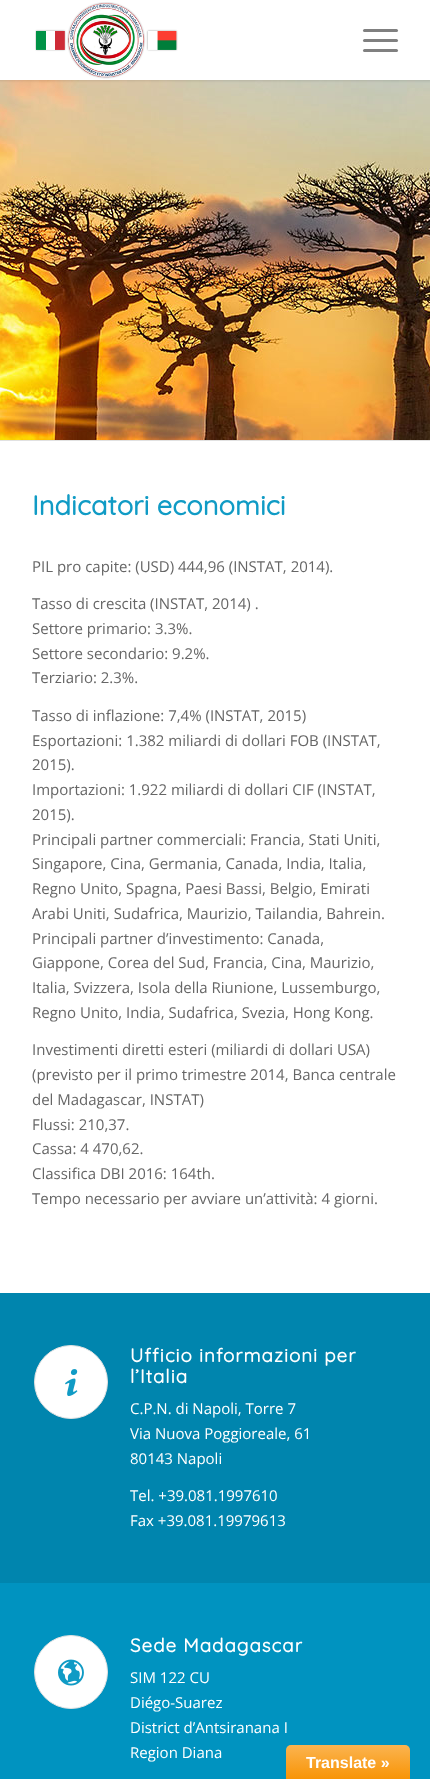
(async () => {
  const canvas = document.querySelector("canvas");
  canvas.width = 430;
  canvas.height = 1779;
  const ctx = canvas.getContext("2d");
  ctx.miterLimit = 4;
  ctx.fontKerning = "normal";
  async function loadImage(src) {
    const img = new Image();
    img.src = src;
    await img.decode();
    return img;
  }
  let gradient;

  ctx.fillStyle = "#ffffff";
  ctx.fillRect(0, 0, 430, 1779);
  ctx.drawImage(await loadImage("img/2.png"), 0, 80, 430, 360);
  ctx.fillStyle = "rgba(0, 0, 0, 0.1)";
  ctx.filter = "blur(1px)";
  ctx.beginPath();
  ctx.rect(-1, -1, 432, 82);
  ctx.fill();
  ctx.filter = "none";
  ctx.fillStyle = "#ffffff";
  ctx.fillRect(0, 0, 430, 80);
  ctx.drawImage(await loadImage("img/1.png"), 35, 2, 143, 77);
  ctx.fillStyle = "#808080";
  ctx.beginPath();
  ctx.roundRect(363, 39, 35, 3, 1.5);
  ctx.fill();
  ctx.beginPath();
  ctx.roundRect(363, 29, 35, 3, 1.5);
  ctx.fill();
  ctx.beginPath();
  ctx.roundRect(363, 49, 35, 3, 1.5);
  ctx.fill();
  ctx.fillStyle = "#e1e1e1";
  ctx.fillRect(0, 440, 430, 1);
  ctx.fillStyle = "#0085ae";
  ctx.fillRect(0, 1293, 430, 290);
  ctx.fillStyle = "#ffffff";
  ctx.beginPath();
  ctx.arc(71, 1382, 36.5, 0, Math.PI * 2);
  ctx.fill();
  ctx.strokeStyle = "#e1e1e1";
  ctx.stroke();
  ctx.drawImage(await loadImage("img/3.png"), 65, 1369, 13, 27);
  ctx.fillStyle = "#0093c0";
  ctx.fillRect(0, 1583, 430, 196);
  ctx.fillStyle = "#ffffff";
  ctx.beginPath();
  ctx.arc(71, 1672, 36.5, 0, Math.PI * 2);
  ctx.fill();
  ctx.stroke();
  ctx.drawImage(await loadImage("img/4.png"), 58, 1659, 26, 27);
  gradient = ctx.createLinearGradient(348, 1745, 348, 1779);
  gradient.addColorStop(0, "#fbb450");
  gradient.addColorStop(1, "#f89406");
  ctx.fillStyle = gradient;
  ctx.beginPath();
  ctx.roundRect(286, 1745, 124, 34, [5, 5, 0, 0]);
  ctx.fill();
  ctx.font = "bold 27.25px Quicksand";
  ctx.fillStyle = "#109bc5";
  ctx.fillText("Indicatori economici", 32, 515);
  ctx.font = "15px Open Sans";
  ctx.fillStyle = "#666666";
  for (const [text, x, y] of [
    ["PIL pro capite: (USD) 444,96 (INSTAT, 2014).", 32, 572],
    ["Tasso di crescita (INSTAT, 2014) .", 32, 609],
    ["Settore primario: 3.3%.", 32, 634],
    ["Settore secondario: 9.2%.", 32, 659],
    ["Terziario: 2.3%.", 32, 683],
    ["Tasso di inflazione: 7,4% (INSTAT, 2015)", 32, 721],
    ["Esportazioni: 1.382 miliardi di dollari FOB (INSTAT,", 32, 746],
    ["2015).", 32, 770],
    ["Importazioni: 1.922 miliardi di dollari CIF (INSTAT,", 32, 795],
    ["2015).", 32, 820],
    ["Principali partner commerciali: Francia, Stati Uniti,", 32, 845],
    ["Singapore, Cina, Germania, Canada, India, Italia,", 32, 869],
    ["Regno Unito, Spagna, Paesi Bassi, Belgio, Emirati", 32, 894],
    ["Arabi Uniti, Sudafrica, Maurizio, Tailandia, Bahrein.", 32, 919],
    ["Principali partner d’investimento: Canada,", 32, 944],
    ["Giappone, Corea del Sud, Francia, Cina, Maurizio,", 32, 968],
    ["Italia, Svizzera, Isola della Riunione, Lussemburgo,", 32, 993],
    ["Regno Unito, India, Sudafrica, Svezia, Hong Kong.", 32, 1018],
    ["Investimenti diretti esteri (miliardi di dollari USA)", 32, 1055],
    ["(previsto per il primo trimestre 2014, Banca centrale", 32, 1080],
    ["del Madagascar, INSTAT)", 32, 1105],
    ["Flussi: 210,37.", 32, 1130],
    ["Cassa: 4 470,62.", 32, 1154],
    ["Classifica DBI 2016: 164th.", 32, 1179],
    ["Tempo necessario per avviare un’attività: 4 giorni.", 32, 1204],
  ]) {
    ctx.fillText(text, x, y);
  }
  ctx.letterSpacing = "1px";
  ctx.font = "bold 18.75px Quicksand";
  ctx.fillStyle = "#ffffff";
  ctx.fillText("Ufficio informazioni per", 130, 1362);
  ctx.fillText("l’Italia", 130, 1383);
  ctx.letterSpacing = "0px";
  ctx.font = "15px Open Sans";
  for (const [text, x, y] of [
    ["C.P.N. di Napoli, Torre 7", 130, 1414],
    ["Via Nuova Poggioreale, 61", 130, 1439],
    ["80143 Napoli", 130, 1464],
    ["Tel. +39.081.1997610", 130, 1501],
    ["Fax +39.081.19979613", 130, 1526],
  ]) {
    ctx.fillText(text, x, y);
  }
  ctx.letterSpacing = "1px";
  ctx.font = "bold 18.75px Quicksand";
  ctx.fillText("Sede Madagascar", 130, 1652);
  ctx.letterSpacing = "0px";
  ctx.font = "15px Open Sans";
  for (const [text, x, y] of [
    ["SIM 122 CU", 130, 1683],
    ["Diégo-Suarez", 130, 1708],
    ["District d’Antsiranana I", 130, 1733],
    ["Region Diana", 130, 1758],
  ]) {
    ctx.fillText(text, x, y);
  }
  ctx.font = "bold 16px Liberation Sans";
  ctx.fillText("Translate »", 306, 1768);
})();
